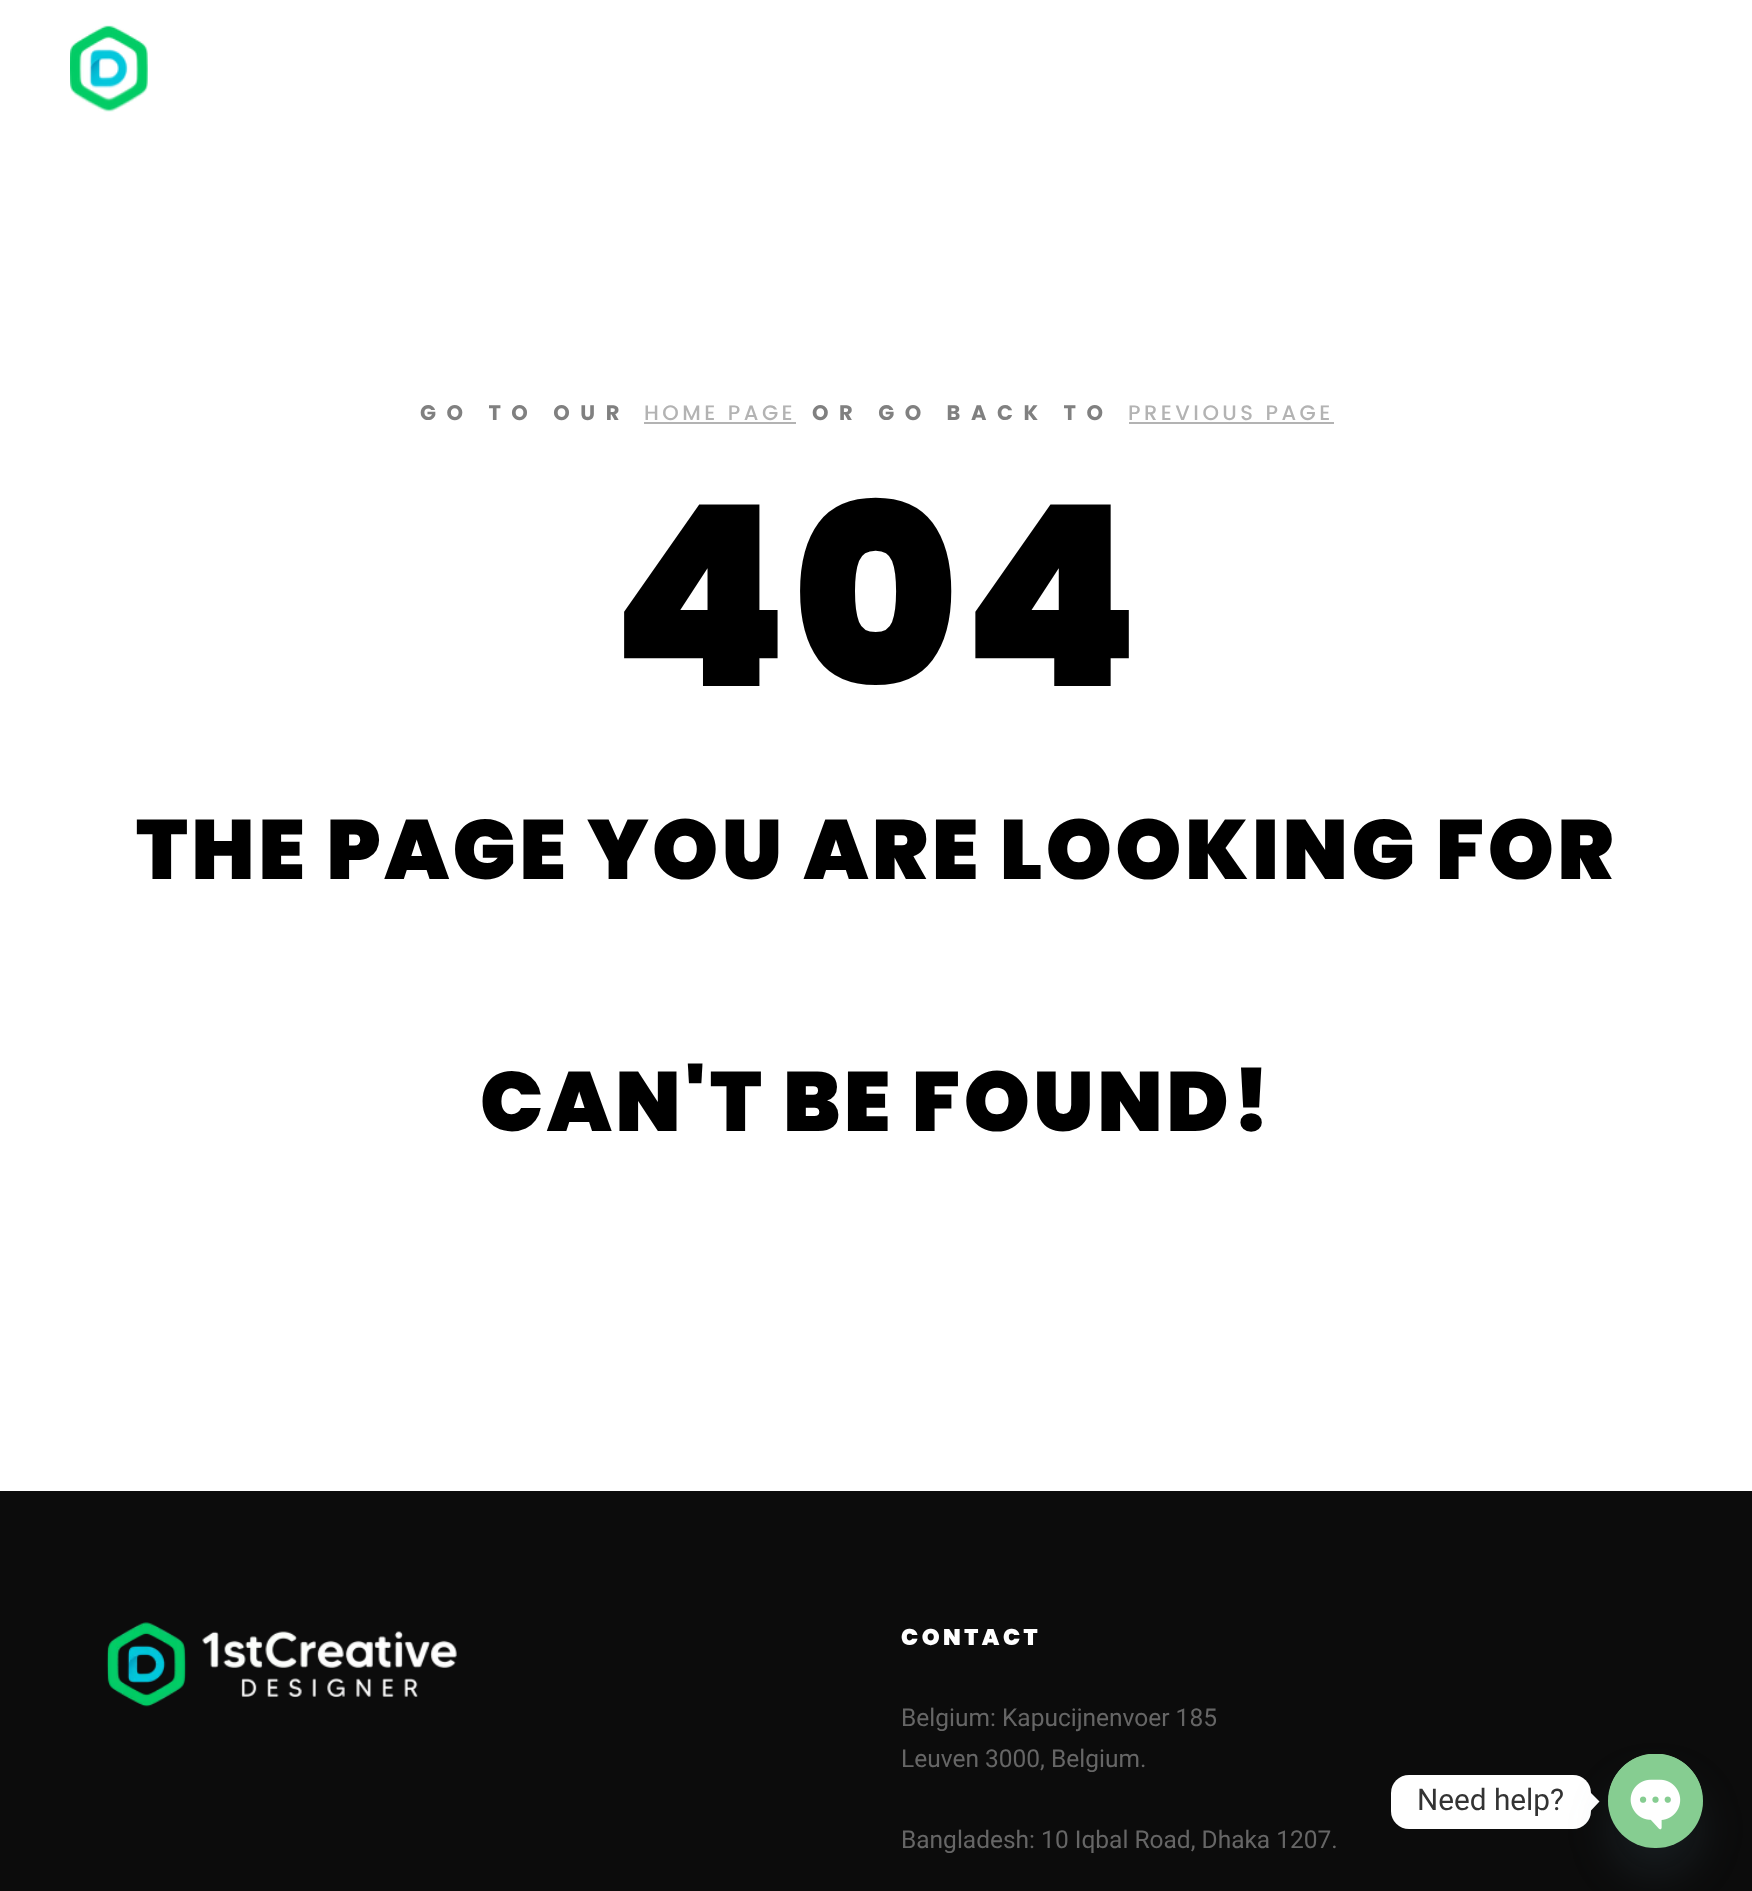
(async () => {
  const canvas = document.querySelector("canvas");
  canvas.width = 1752;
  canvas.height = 1891;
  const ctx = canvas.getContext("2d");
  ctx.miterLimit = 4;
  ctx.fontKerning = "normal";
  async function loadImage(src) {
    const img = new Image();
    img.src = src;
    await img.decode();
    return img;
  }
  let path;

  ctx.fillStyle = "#ffffff";
  ctx.fillRect(0, 0, 1752, 1891);
  ctx.drawImage(await loadImage("img/1.png"), 70, 25, 78, 87);
  for (const [x, y, w, h, color] of [
    [644, 422, 152, 2, "#b3b3b3"],
    [1129, 422, 205, 2, "#b3b3b3"],
    [0, 1491, 1752, 400, "#0c0c0c"],
  ]) {
    ctx.fillStyle = color;
    ctx.fillRect(x, y, w, h);
  }
  ctx.drawImage(await loadImage("img/2.png"), 106, 1622, 351, 85);
  ctx.fillStyle = "#ffffff";
  ctx.beginPath();
  ctx.roundRect(1391, 1775, 200, 54, 18);
  ctx.fill();
  path = new Path2D("M1591 1810.5V1793L1599.5 1801.5Z");
  ctx.fill(path);
  ctx.fillStyle = "rgba(73, 104, 126, 0.16)";
  ctx.filter = "blur(21px)";
  ctx.beginPath();
  ctx.roundRect(1608, 1782, 95, 94, 47);
  ctx.fill();
  ctx.filter = "none";
  ctx.fillStyle = "#86cd91";
  ctx.beginPath();
  ctx.roundRect(1608, 1754, 95, 94, 47);
  ctx.fill();
  ctx.drawImage(await loadImage("img/3.png"), 1608, 1754, 95, 76);
  ctx.letterSpacing = "10.5px";
  ctx.font = "bold 21px Poppins";
  ctx.fillStyle = "#808080";
  ctx.fillText("GO TO OUR", 420, 420);
  ctx.letterSpacing = "3.5px";
  ctx.font = "500 21px Poppins";
  ctx.fillStyle = "#b3b3b3";
  ctx.fillText("HOME PAGE", 644, 420);
  ctx.letterSpacing = "10.5px";
  ctx.font = "bold 21px Poppins";
  ctx.fillStyle = "#808080";
  ctx.fillText("OR GO BACK TO", 812, 420);
  ctx.letterSpacing = "3.5px";
  ctx.font = "500 21px Poppins";
  ctx.fillStyle = "#b3b3b3";
  ctx.fillText("PREVIOUS PAGE", 1128, 420);
  ctx.font = "900 252px Poppins";
  ctx.fillStyle = "#000000";
  ctx.fillText("404", 611, 686);
  ctx.font = "900 84px Poppins";
  ctx.fillText("THE PAGE YOU ARE LOOKING FOR", 136, 879);
  ctx.fillText("CAN'T BE FOUND!", 480, 1131);
  ctx.font = "900 22.75px Poppins";
  ctx.fillStyle = "#ffffff";
  ctx.fillText("CONTACT", 901, 1645);
  ctx.letterSpacing = "0px";
  ctx.font = "24.5px Roboto";
  ctx.fillStyle = "#666666";
  for (const [text, x, y] of [
    ["Belgium: Kapucijnenvoer 185", 901, 1726],
    ["Leuven 3000, Belgium.", 901, 1767],
    ["Bangladesh: 10 Iqbal Road, Dhaka 1207.", 901, 1848],
  ]) {
    ctx.fillText(text, x, y);
  }
  ctx.font = "29.75px Roboto";
  ctx.fillStyle = "#333333";
  ctx.fillText("Need help?", 1417, 1810);
})();
